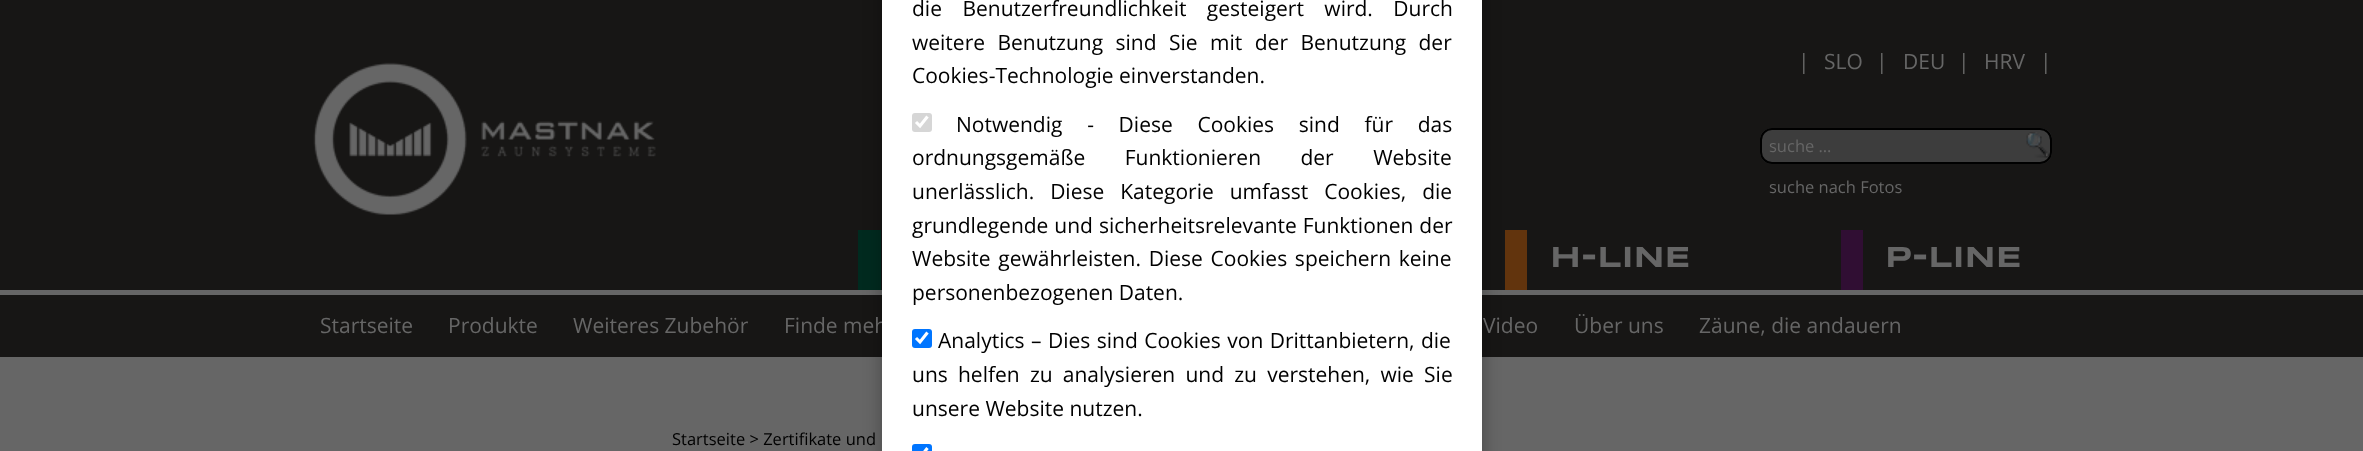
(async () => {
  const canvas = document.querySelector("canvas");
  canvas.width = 2363;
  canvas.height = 451;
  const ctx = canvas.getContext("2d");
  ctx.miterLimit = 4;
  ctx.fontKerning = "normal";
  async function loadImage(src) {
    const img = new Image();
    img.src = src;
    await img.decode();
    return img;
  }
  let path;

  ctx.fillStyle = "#171615";
  ctx.fillRect(0, 0, 2363, 451);
  for (const [x, y, w, h, color] of [
    [0, 290, 2363, 5, "#666666"],
    [858, 230, 23, 60, "#002a1f"],
    [1505, 230, 22, 60, "#62340d"],
    [0, 357, 2363, 94, "#666666"],
  ]) {
    ctx.fillStyle = color;
    ctx.fillRect(x, y, w, h);
  }
  ctx.fillStyle = "rgba(0, 0, 0, 0.3)";
  ctx.filter = "blur(9px)";
  ctx.beginPath();
  ctx.roundRect(882, -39, 600, 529, 12);
  ctx.fill();
  ctx.filter = "none";
  ctx.drawImage(await loadImage("img/1.png"), 313, 62, 343, 153);
  ctx.fillStyle = "#3d3d3d";
  ctx.beginPath();
  ctx.roundRect(1760, 128, 292, 36, 12);
  ctx.fill();
  ctx.drawImage(await loadImage("img/2.png"), 2026, 132, 24, 26);
  ctx.beginPath();
  ctx.roundRect(1761, 129, 290, 34, 11);
  ctx.strokeStyle = "#000000";
  ctx.lineWidth = 2;
  ctx.stroke();
  ctx.fillStyle = "#300e33";
  ctx.fillRect(1841, 230, 22, 60);
  ctx.font = "21px Open Sans";
  ctx.fillStyle = "#666666";
  for (const [text, x, y] of [
    ["|", 1798, 69],
    ["SLO", 1824, 69],
    ["|", 1876, 69],
    ["DEU", 1903, 69],
    ["|", 1958, 69],
    ["HRV", 1984, 69],
    ["|", 2040, 69],
  ]) {
    ctx.fillText(text, x, y);
  }
  ctx.font = "16.5px Open Sans";
  ctx.fillText("suche …", 1769, 152);
  ctx.fillText("suche nach Fotos", 1769, 193);
  ctx.font = "bold 30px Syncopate";
  ctx.fillText("H-LINE", 1550, 267);
  ctx.fillText("P-LINE", 1885, 267);
  ctx.font = "21px Open Sans";
  for (const [text, x, y] of [
    ["Startseite", 320, 333],
    ["Produkte", 448, 333],
    ["Weiteres Zubehör", 573, 333],
    ["Finde meh", 784, 333],
  ]) {
    ctx.fillText(text, x, y);
  }
  ctx.fillStyle = "#ffffff";
  ctx.fillRect(882, 0, 600, 451);
  ctx.fillStyle = "#0075ff";
  ctx.beginPath();
  ctx.roundRect(912, 444, 20, 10, 3);
  ctx.fill();
  path = new Path2D("M916 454L920 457.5L927.5 448");
  ctx.strokeStyle = "#ffffff";
  ctx.lineWidth = 3.1;
  ctx.stroke(path);
  ctx.fillStyle = "#000000";
  ctx.fillText("unsere Website nutzen.", 912, 416);
  ctx.wordSpacing = "4.75px";
  ctx.fillText("uns helfen zu analysieren und zu verstehen, wie Sie", 912, 382);
  ctx.wordSpacing = "1px";
  ctx.fillText("Analytics – Dies sind Cookies von Drittanbietern, die", 938, 348);
  ctx.fillStyle = "#0075ff";
  ctx.beginPath();
  ctx.roundRect(912, 329, 20, 19, 3);
  ctx.fill();
  path = new Path2D("M916 338L920 342L927.5 332.5");
  ctx.stroke(path);
  ctx.wordSpacing = "0px";
  ctx.fillStyle = "#000000";
  ctx.fillText("personenbezogenen Daten.", 912, 300);
  ctx.wordSpacing = "2.25px";
  ctx.fillText("Website gewährleisten. Diese Cookies speichern keine", 912, 266);
  ctx.wordSpacing = "0.5px";
  ctx.fillText("grundlegende und sicherheitsrelevante Funktionen der", 912, 233);
  ctx.wordSpacing = "10.5px";
  ctx.fillText("unerlässlich. Diese Kategorie umfasst Cookies, die", 912, 199);
  ctx.wordSpacing = "34px";
  ctx.fillText("ordnungsgemäße Funktionieren der Website", 912, 165);
  ctx.wordSpacing = "19.25px";
  ctx.fillText("Notwendig - Diese Cookies sind für das", 956, 132);
  ctx.fillStyle = "#d6d6d6";
  ctx.beginPath();
  ctx.roundRect(912, 113, 20, 19, 3);
  ctx.fill();
  path = new Path2D("M916 122L920 126L927.5 116.5");
  ctx.stroke(path);
  ctx.wordSpacing = "0px";
  ctx.fillStyle = "#000000";
  ctx.fillText("Cookies-Technologie einverstanden.", 912, 83);
  ctx.wordSpacing = "7px";
  ctx.fillText("weitere Benutzung sind Sie mit der Benutzung der", 912, 50);
  ctx.wordSpacing = "15px";
  ctx.fillText("die Benutzerfreundlichkeit gesteigert wird. Durch", 912, 16);
  ctx.wordSpacing = "0px";
  ctx.fillStyle = "#666666";
  for (const [text, x, y] of [
    ["Video", 1483, 333],
    ["Über uns", 1574, 333],
    ["Zäune, die andauern", 1699, 333],
  ]) {
    ctx.fillText(text, x, y);
  }
  ctx.font = "16.5px Open Sans";
  ctx.fillStyle = "#000000";
  ctx.fillText("Startseite > Zertifikate und", 672, 445);
})();
